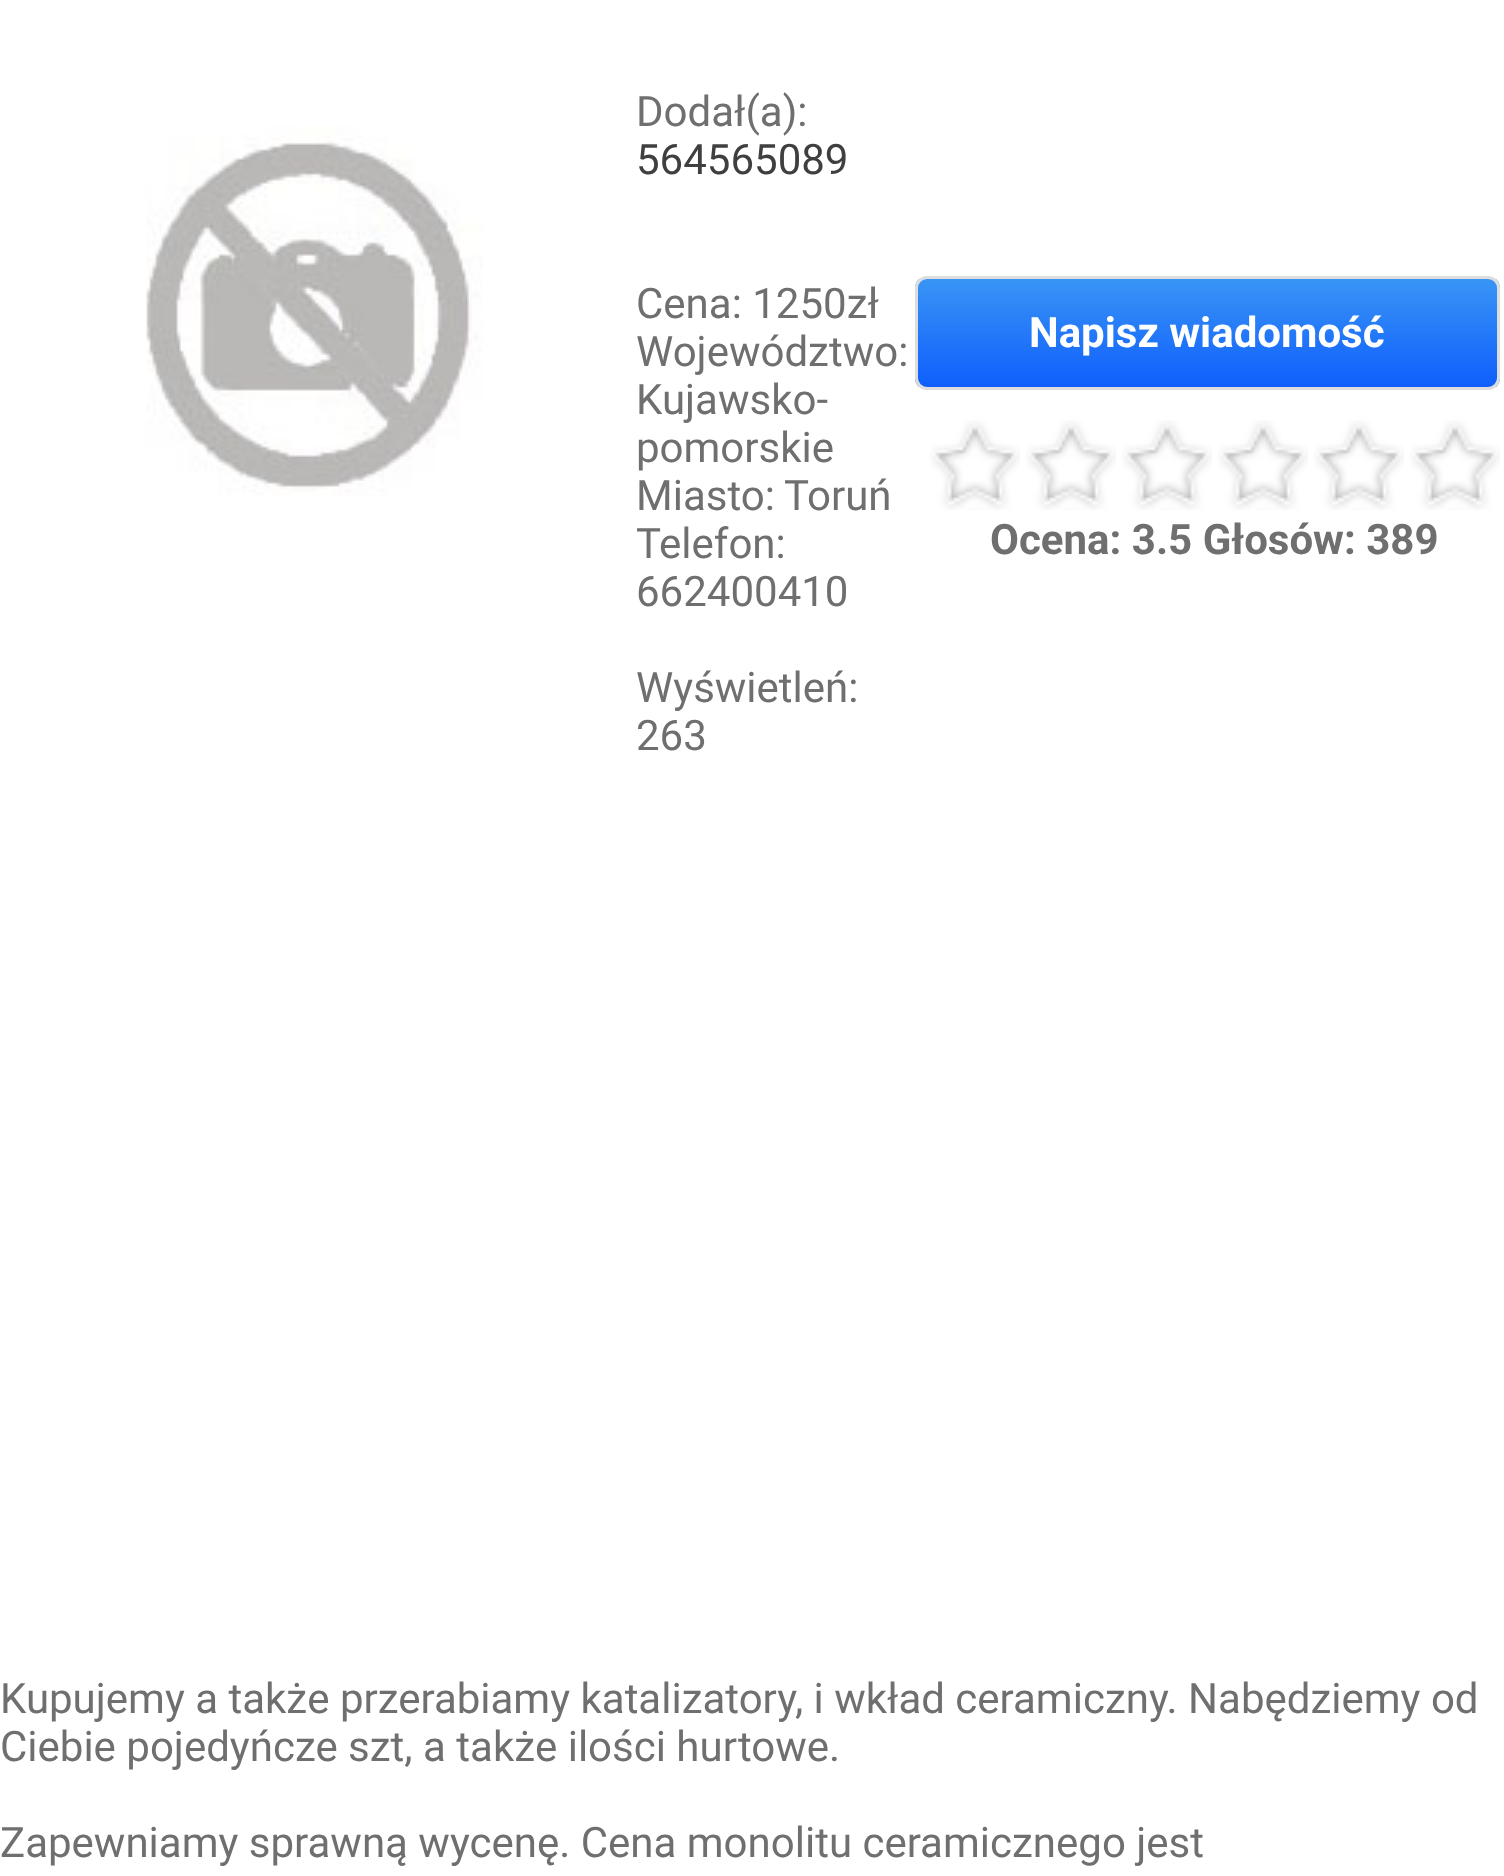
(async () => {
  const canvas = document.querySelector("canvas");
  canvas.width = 1504;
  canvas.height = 1876;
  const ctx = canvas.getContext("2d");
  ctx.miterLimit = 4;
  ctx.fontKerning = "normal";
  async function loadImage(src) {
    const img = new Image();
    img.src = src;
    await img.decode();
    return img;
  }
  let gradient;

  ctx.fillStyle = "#ffffff";
  ctx.fillRect(0, 0, 1504, 1876);
  ctx.drawImage(await loadImage("img/1.png"), 146, 126, 337, 370);
  ctx.save();
  ctx.beginPath();
  ctx.roundRect(915, 276, 585, 114, 12);
  ctx.clip();
  gradient = ctx.createLinearGradient(918, 279, 918, 387);
  gradient.addColorStop(0, "#3994f5");
  gradient.addColorStop(1, "#0f5efc");
  ctx.fillStyle = gradient;
  ctx.fillRect(915, 279, 585, 108);
  ctx.restore();
  ctx.beginPath();
  ctx.roundRect(916.5, 277.5, 582, 111, 10.5);
  ctx.strokeStyle = "#dddddd";
  ctx.lineWidth = 3;
  ctx.stroke();
  ctx.drawImage(await loadImage("img/2.png"), 930, 420, 90, 90);
  ctx.drawImage(await loadImage("img/3.png"), 1026, 420, 90, 90);
  ctx.drawImage(await loadImage("img/4.png"), 1122, 420, 90, 90);
  ctx.drawImage(await loadImage("img/5.png"), 1218, 420, 90, 90);
  ctx.drawImage(await loadImage("img/2.png"), 1314, 420, 90, 90);
  ctx.drawImage(await loadImage("img/2.png"), 1410, 420, 90, 90);
  ctx.font = "42px Roboto";
  ctx.fillStyle = "#6f6f6f";
  ctx.fillText("Dodał(a):", 636, 126);
  ctx.fillStyle = "#3f3f3f";
  ctx.fillText("564565089", 636, 174);
  ctx.fillStyle = "#6f6f6f";
  for (const [text, x, y] of [
    ["Cena: 1250zł", 636, 318],
    ["Województwo:", 636, 366],
    ["Kujawsko-", 636, 414],
    ["pomorskie", 636, 462],
    ["Miasto:", 636, 510],
    ["Toruń", 784, 510],
    ["Telefon:", 636, 558],
    ["662400410", 636, 606],
    ["Wyświetleń:", 636, 702],
    ["263", 636, 750],
  ]) {
    ctx.fillText(text, x, y);
  }
  ctx.font = "bold 42px Roboto";
  ctx.fillStyle = "#ffffff";
  ctx.fillText("Napisz wiadomość", 1029, 347);
  ctx.fillStyle = "#6f6f6f";
  ctx.fillText("Ocena: 3.5 Głosów: 389", 990, 554);
  ctx.font = "42px Roboto";
  for (const [text, x, y] of [
    ["Kupujemy a także przerabiamy katalizatory, i wkład ceramiczny. Nabędziemy od", 0, 1713],
    ["Ciebie pojedyńcze szt, a także ilości hurtowe.", 0, 1761],
    ["Zapewniamy sprawną wycenę. Cena monolitu ceramicznego jest", 0, 1857],
  ]) {
    ctx.fillText(text, x, y);
  }
})();
